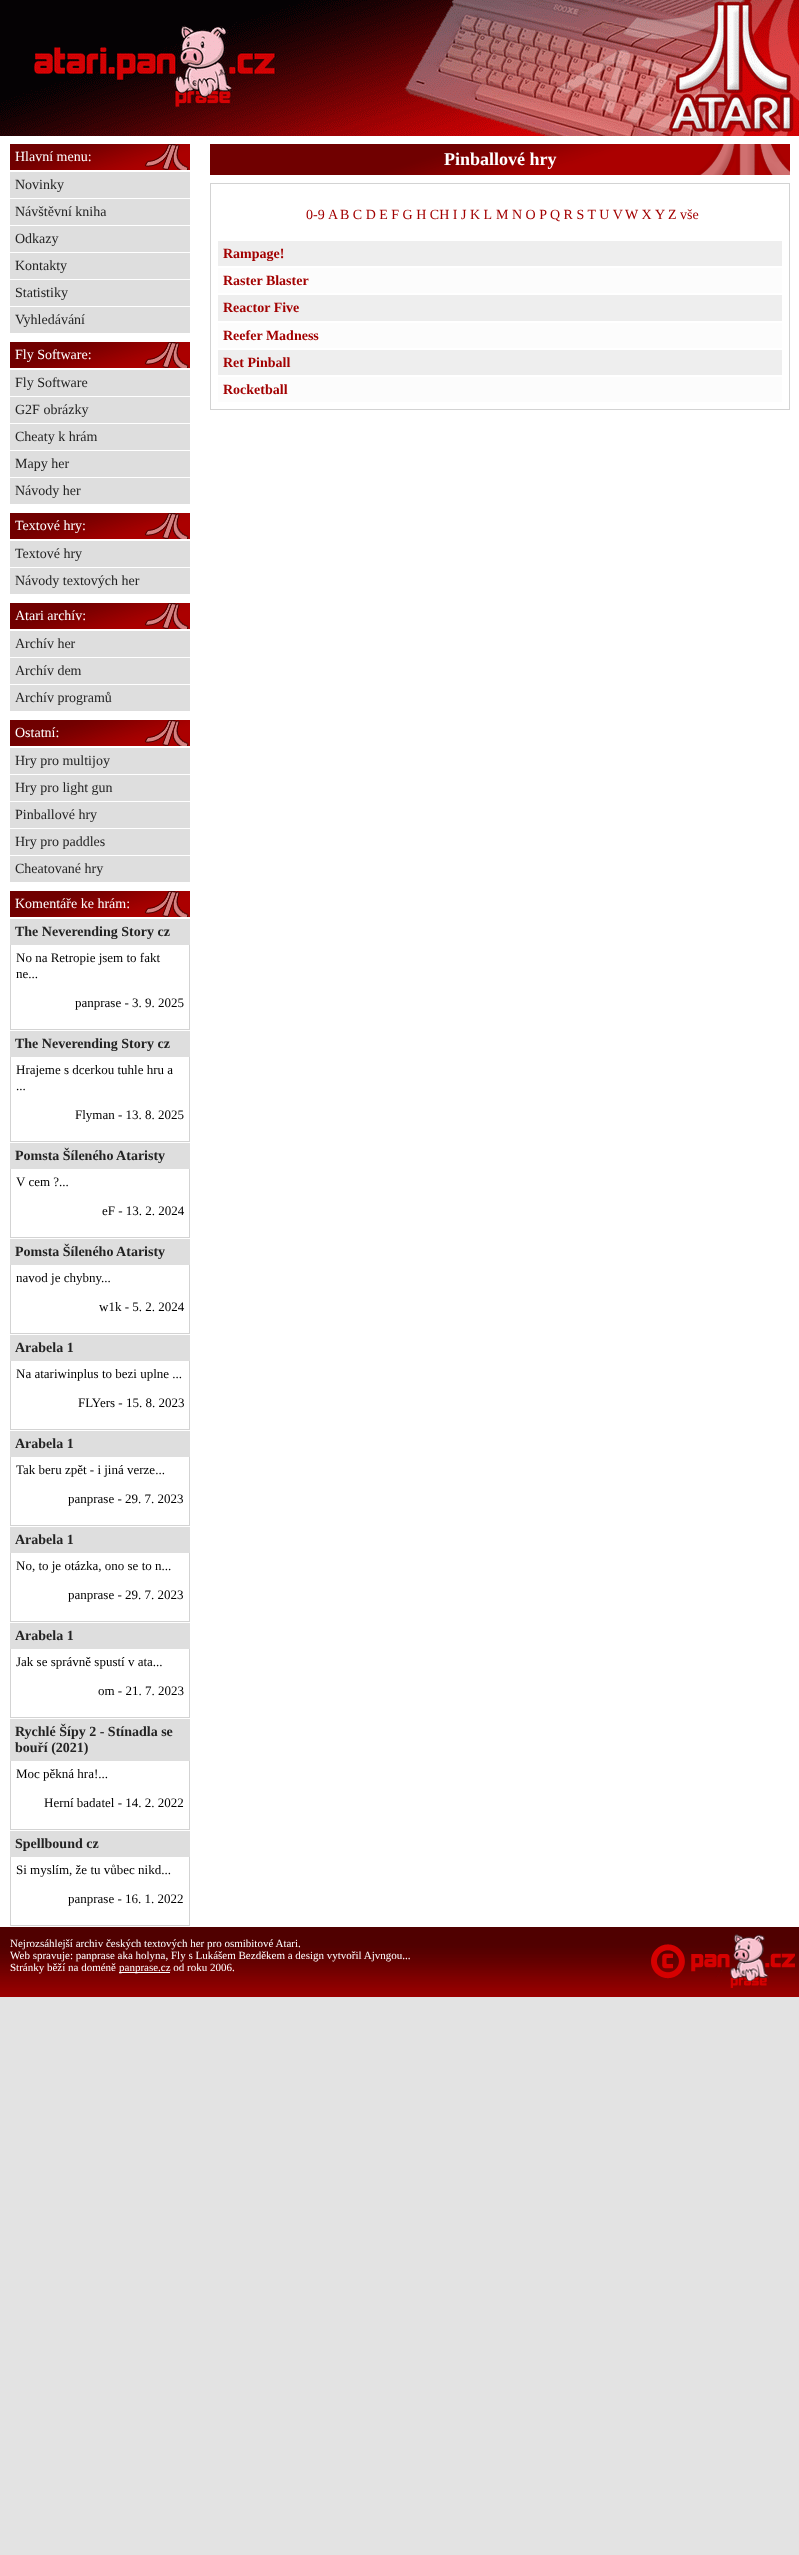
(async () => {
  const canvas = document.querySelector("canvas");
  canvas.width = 799;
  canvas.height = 2555;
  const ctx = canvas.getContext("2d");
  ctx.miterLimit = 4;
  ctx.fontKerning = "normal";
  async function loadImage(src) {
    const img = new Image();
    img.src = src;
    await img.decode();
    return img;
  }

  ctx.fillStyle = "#e3e3e3";
  ctx.fillRect(0, 0, 799, 2555);
  ctx.fillStyle = "#ffffff";
  ctx.fillRect(0, 136, 799, 1791);
  ctx.drawImage(await loadImage("img/1.png"), 0, 0, 799, 136);
  ctx.drawImage(await loadImage("img/2.png"), 10, 144, 180, 26);
  for (const [x, y, w, h, color] of [
    [10, 172, 180, 26, "#dedede"],
    [10, 199, 180, 26, "#dedede"],
    [10, 226, 180, 26, "#dedede"],
    [10, 253, 180, 26, "#dedede"],
    [10, 280, 180, 26, "#dedede"],
    [10, 307, 180, 26, "#dedede"],
  ]) {
    ctx.fillStyle = color;
    ctx.fillRect(x, y, w, h);
  }
  ctx.drawImage(await loadImage("img/2.png"), 10, 342, 180, 26);
  for (const [x, y, w, h, color] of [
    [10, 370, 180, 26, "#dedede"],
    [10, 397, 180, 26, "#dedede"],
    [10, 424, 180, 26, "#dedede"],
    [10, 451, 180, 26, "#dedede"],
    [10, 478, 180, 26, "#dedede"],
  ]) {
    ctx.fillStyle = color;
    ctx.fillRect(x, y, w, h);
  }
  ctx.drawImage(await loadImage("img/2.png"), 10, 513, 180, 26);
  ctx.fillRect(10, 541, 180, 26);
  ctx.fillRect(10, 568, 180, 26);
  ctx.drawImage(await loadImage("img/2.png"), 10, 603, 180, 26);
  for (const [x, y, w, h, color] of [
    [10, 631, 180, 26, "#dedede"],
    [10, 658, 180, 26, "#dedede"],
    [10, 685, 180, 26, "#dedede"],
  ]) {
    ctx.fillStyle = color;
    ctx.fillRect(x, y, w, h);
  }
  ctx.drawImage(await loadImage("img/2.png"), 10, 720, 180, 26);
  for (const [x, y, w, h, color] of [
    [10, 748, 180, 26, "#dedede"],
    [10, 775, 180, 26, "#dedede"],
    [10, 802, 180, 26, "#dedede"],
    [10, 829, 180, 26, "#dedede"],
    [10, 856, 180, 26, "#dedede"],
  ]) {
    ctx.fillStyle = color;
    ctx.fillRect(x, y, w, h);
  }
  ctx.drawImage(await loadImage("img/2.png"), 10, 891, 180, 26);
  for (const [x, y, w, h, color] of [
    [10, 919, 180, 26, "#dedede"],
    [189, 945, 1, 85, "#d3d3d3"],
    [10, 1029, 180, 1, "#d3d3d3"],
    [10, 945, 1, 85, "#d3d3d3"],
    [10, 1031, 180, 26, "#dedede"],
    [189, 1057, 1, 85, "#d3d3d3"],
    [10, 1141, 180, 1, "#d3d3d3"],
    [10, 1057, 1, 85, "#d3d3d3"],
    [10, 1143, 180, 26, "#dedede"],
    [189, 1169, 1, 69, "#d3d3d3"],
    [10, 1237, 180, 1, "#d3d3d3"],
    [10, 1169, 1, 69, "#d3d3d3"],
    [10, 1239, 180, 26, "#dedede"],
    [189, 1265, 1, 69, "#d3d3d3"],
    [10, 1333, 180, 1, "#d3d3d3"],
    [10, 1265, 1, 69, "#d3d3d3"],
    [10, 1335, 180, 26, "#dedede"],
    [189, 1361, 1, 69, "#d3d3d3"],
    [10, 1429, 180, 1, "#d3d3d3"],
    [10, 1361, 1, 69, "#d3d3d3"],
    [10, 1431, 180, 26, "#dedede"],
    [189, 1457, 1, 69, "#d3d3d3"],
    [10, 1525, 180, 1, "#d3d3d3"],
    [10, 1457, 1, 69, "#d3d3d3"],
    [10, 1527, 180, 26, "#dedede"],
    [189, 1553, 1, 69, "#d3d3d3"],
    [10, 1621, 180, 1, "#d3d3d3"],
    [10, 1553, 1, 69, "#d3d3d3"],
    [10, 1623, 180, 26, "#dedede"],
    [189, 1649, 1, 69, "#d3d3d3"],
    [10, 1717, 180, 1, "#d3d3d3"],
    [10, 1649, 1, 69, "#d3d3d3"],
    [10, 1719, 180, 42, "#dedede"],
    [189, 1761, 1, 69, "#d3d3d3"],
    [10, 1829, 180, 1, "#d3d3d3"],
    [10, 1761, 1, 69, "#d3d3d3"],
    [10, 1831, 180, 26, "#dedede"],
    [189, 1857, 1, 69, "#d3d3d3"],
    [10, 1925, 180, 1, "#d3d3d3"],
    [10, 1857, 1, 69, "#d3d3d3"],
  ]) {
    ctx.fillStyle = color;
    ctx.fillRect(x, y, w, h);
  }
  ctx.drawImage(await loadImage("img/3.png"), 210, 144, 580, 31);
  ctx.strokeStyle = "#d3d3d3";
  ctx.strokeRect(210.5, 183.5, 579, 226);
  for (const [x, y, w, h, color] of [
    [218, 241, 564, 25, "#eeeeee"],
    [218, 268, 564, 25, "#fcfcfc"],
    [218, 295, 564, 26, "#eeeeee"],
    [218, 323, 564, 25, "#fcfcfc"],
    [218, 350, 564, 25, "#eeeeee"],
    [218, 377, 564, 25, "#fcfcfc"],
  ]) {
    ctx.fillStyle = color;
    ctx.fillRect(x, y, w, h);
  }
  ctx.drawImage(await loadImage("img/4.png"), 0, 1927, 799, 70);
  ctx.fillStyle = "#ffffff";
  ctx.fillRect(119, 1972, 51, 1);
  ctx.font = "14px Liberation Serif";
  ctx.fillText("Hlavní menu:", 15, 161);
  ctx.fillStyle = "#232323";
  for (const [text, x, y] of [
    ["Novinky", 15, 189],
    ["Návštěvní kniha", 15, 216],
    ["Odkazy", 15, 243],
    ["Kontakty", 15, 270],
    ["Statistiky", 15, 297],
    ["Vyhledávání", 15, 324],
  ]) {
    ctx.fillText(text, x, y);
  }
  ctx.fillStyle = "#ffffff";
  ctx.fillText("Fly Software:", 15, 359);
  ctx.fillStyle = "#232323";
  for (const [text, x, y] of [
    ["Fly Software", 15, 387],
    ["G2F obrázky", 15, 414],
    ["Cheaty k hrám", 15, 441],
    ["Mapy her", 15, 468],
    ["Návody her", 15, 495],
  ]) {
    ctx.fillText(text, x, y);
  }
  ctx.fillStyle = "#ffffff";
  ctx.fillText("Textové hry:", 15, 530);
  ctx.fillStyle = "#232323";
  ctx.fillText("Textové hry", 15, 558);
  ctx.fillText("Návody textových her", 15, 585);
  ctx.fillStyle = "#ffffff";
  ctx.fillText("Atari archív:", 15, 620);
  ctx.fillStyle = "#232323";
  for (const [text, x, y] of [
    ["Archív her", 15, 648],
    ["Archív dem", 15, 675],
    ["Archív programů", 15, 702],
  ]) {
    ctx.fillText(text, x, y);
  }
  ctx.fillStyle = "#ffffff";
  ctx.fillText("Ostatní:", 15, 737);
  ctx.fillStyle = "#232323";
  for (const [text, x, y] of [
    ["Hry pro multijoy", 15, 765],
    ["Hry pro light gun", 15, 792],
    ["Pinballové hry", 15, 819],
    ["Hry pro paddles", 15, 846],
    ["Cheatované hry", 15, 873],
  ]) {
    ctx.fillText(text, x, y);
  }
  ctx.fillStyle = "#ffffff";
  ctx.fillText("Komentáře ke hrám:", 15, 908);
  ctx.font = "bold 14px Liberation Serif";
  ctx.fillStyle = "#232323";
  ctx.fillText("The Neverending Story cz", 15, 936);
  ctx.font = "13px Liberation Serif";
  ctx.fillStyle = "#000000";
  for (const [text, x, y] of [
    ["No na Retropie jsem to fakt", 16, 962],
    ["ne...", 16, 978],
    ["panprase - 3. 9. 2025", 75, 1007],
  ]) {
    ctx.fillText(text, x, y);
  }
  ctx.font = "bold 14px Liberation Serif";
  ctx.fillStyle = "#232323";
  ctx.fillText("The Neverending Story cz", 15, 1048);
  ctx.font = "13px Liberation Serif";
  ctx.fillStyle = "#000000";
  for (const [text, x, y] of [
    ["Hrajeme s dcerkou tuhle hru a", 16, 1074],
    ["...", 16, 1090],
    ["Flyman - 13. 8. 2025", 75, 1119],
  ]) {
    ctx.fillText(text, x, y);
  }
  ctx.font = "bold 14px Liberation Serif";
  ctx.fillStyle = "#232323";
  ctx.fillText("Pomsta Šíleného Ataristy", 15, 1160);
  ctx.font = "13px Liberation Serif";
  ctx.fillStyle = "#000000";
  ctx.fillText("V cem ?...", 16, 1186);
  ctx.fillText("eF - 13. 2. 2024", 102, 1215);
  ctx.font = "bold 14px Liberation Serif";
  ctx.fillStyle = "#232323";
  ctx.fillText("Pomsta Šíleného Ataristy", 15, 1256);
  ctx.font = "13px Liberation Serif";
  ctx.fillStyle = "#000000";
  ctx.fillText("navod je chybny...", 16, 1282);
  ctx.fillText("w1k - 5. 2. 2024", 99, 1311);
  ctx.font = "bold 14px Liberation Serif";
  ctx.fillStyle = "#232323";
  ctx.fillText("Arabela 1", 15, 1352);
  ctx.font = "13px Liberation Serif";
  ctx.fillStyle = "#000000";
  ctx.fillText("Na atariwinplus to bezi uplne ...", 16, 1378);
  ctx.fillText("FLYers - 15. 8. 2023", 78, 1407);
  ctx.font = "bold 14px Liberation Serif";
  ctx.fillStyle = "#232323";
  ctx.fillText("Arabela 1", 15, 1448);
  ctx.font = "13px Liberation Serif";
  ctx.fillStyle = "#000000";
  ctx.fillText("Tak beru zpět - i jiná verze...", 16, 1474);
  ctx.fillText("panprase - 29. 7. 2023", 68, 1503);
  ctx.font = "bold 14px Liberation Serif";
  ctx.fillStyle = "#232323";
  ctx.fillText("Arabela 1", 15, 1544);
  ctx.font = "13px Liberation Serif";
  ctx.fillStyle = "#000000";
  ctx.fillText("No, to je otázka, ono se to n...", 16, 1570);
  ctx.fillText("panprase - 29. 7. 2023", 68, 1599);
  ctx.font = "bold 14px Liberation Serif";
  ctx.fillStyle = "#232323";
  ctx.fillText("Arabela 1", 15, 1640);
  ctx.font = "13px Liberation Serif";
  ctx.fillStyle = "#000000";
  ctx.fillText("Jak se správně spustí v ata...", 16, 1666);
  ctx.fillText("om - 21. 7. 2023", 98, 1695);
  ctx.font = "bold 14px Liberation Serif";
  ctx.fillStyle = "#232323";
  ctx.fillText("Rychlé Šípy 2 - Stínadla se", 15, 1736);
  ctx.fillText("bouří (2021)", 15, 1752);
  ctx.font = "13px Liberation Serif";
  ctx.fillStyle = "#000000";
  ctx.fillText("Moc pěkná hra!...", 16, 1778);
  ctx.fillText("Herní badatel - 14. 2. 2022", 44, 1807);
  ctx.font = "bold 14px Liberation Serif";
  ctx.fillStyle = "#232323";
  ctx.fillText("Spellbound cz", 15, 1848);
  ctx.font = "13px Liberation Serif";
  ctx.fillStyle = "#000000";
  ctx.fillText("Si myslím, že tu vůbec nikd...", 16, 1874);
  ctx.fillText("panprase - 16. 1. 2022", 68, 1903);
  ctx.font = "bold 18px Liberation Serif";
  ctx.fillStyle = "#ffffff";
  ctx.fillText("Pinballové hry", 444, 165);
  ctx.font = "14px Liberation Serif";
  ctx.fillStyle = "#a20000";
  for (const [text, x, y] of [
    ["0-9", 306, 219],
    ["A", 328, 219],
    ["B C D E F G H CH I J K L", 340, 219],
    ["M N O P", 496, 219],
    ["Q R S T U V", 550, 219],
    ["W X", 625, 219],
    ["Y", 655, 219],
    ["Z vše", 668, 219],
  ]) {
    ctx.fillText(text, x, y);
  }
  ctx.font = "bold 14px Liberation Serif";
  for (const [text, x, y] of [
    ["Rampage!", 223, 258],
    ["Raster Blaster", 223, 285],
    ["Reactor Five", 223, 312],
    ["Reefer Madness", 223, 340],
    ["Ret Pinball", 223, 367],
    ["Rocketball", 223, 394],
  ]) {
    ctx.fillText(text, x, y);
  }
  ctx.font = "11px Liberation Serif";
  ctx.fillStyle = "#ffffff";
  for (const [text, x, y] of [
    ["Nejrozsáhlejší archiv českých textových her pro osmibitové Atari.", 10, 1947],
    ["Web spravuje: panprase aka holyna, Fly s Lukášem Bezděkem a design vytvořil Ajvngou...", 10, 1959],
    ["Stránky běží na doméně", 10, 1971],
    ["panprase.cz od roku 2006.", 119, 1971],
  ]) {
    ctx.fillText(text, x, y);
  }
})();
